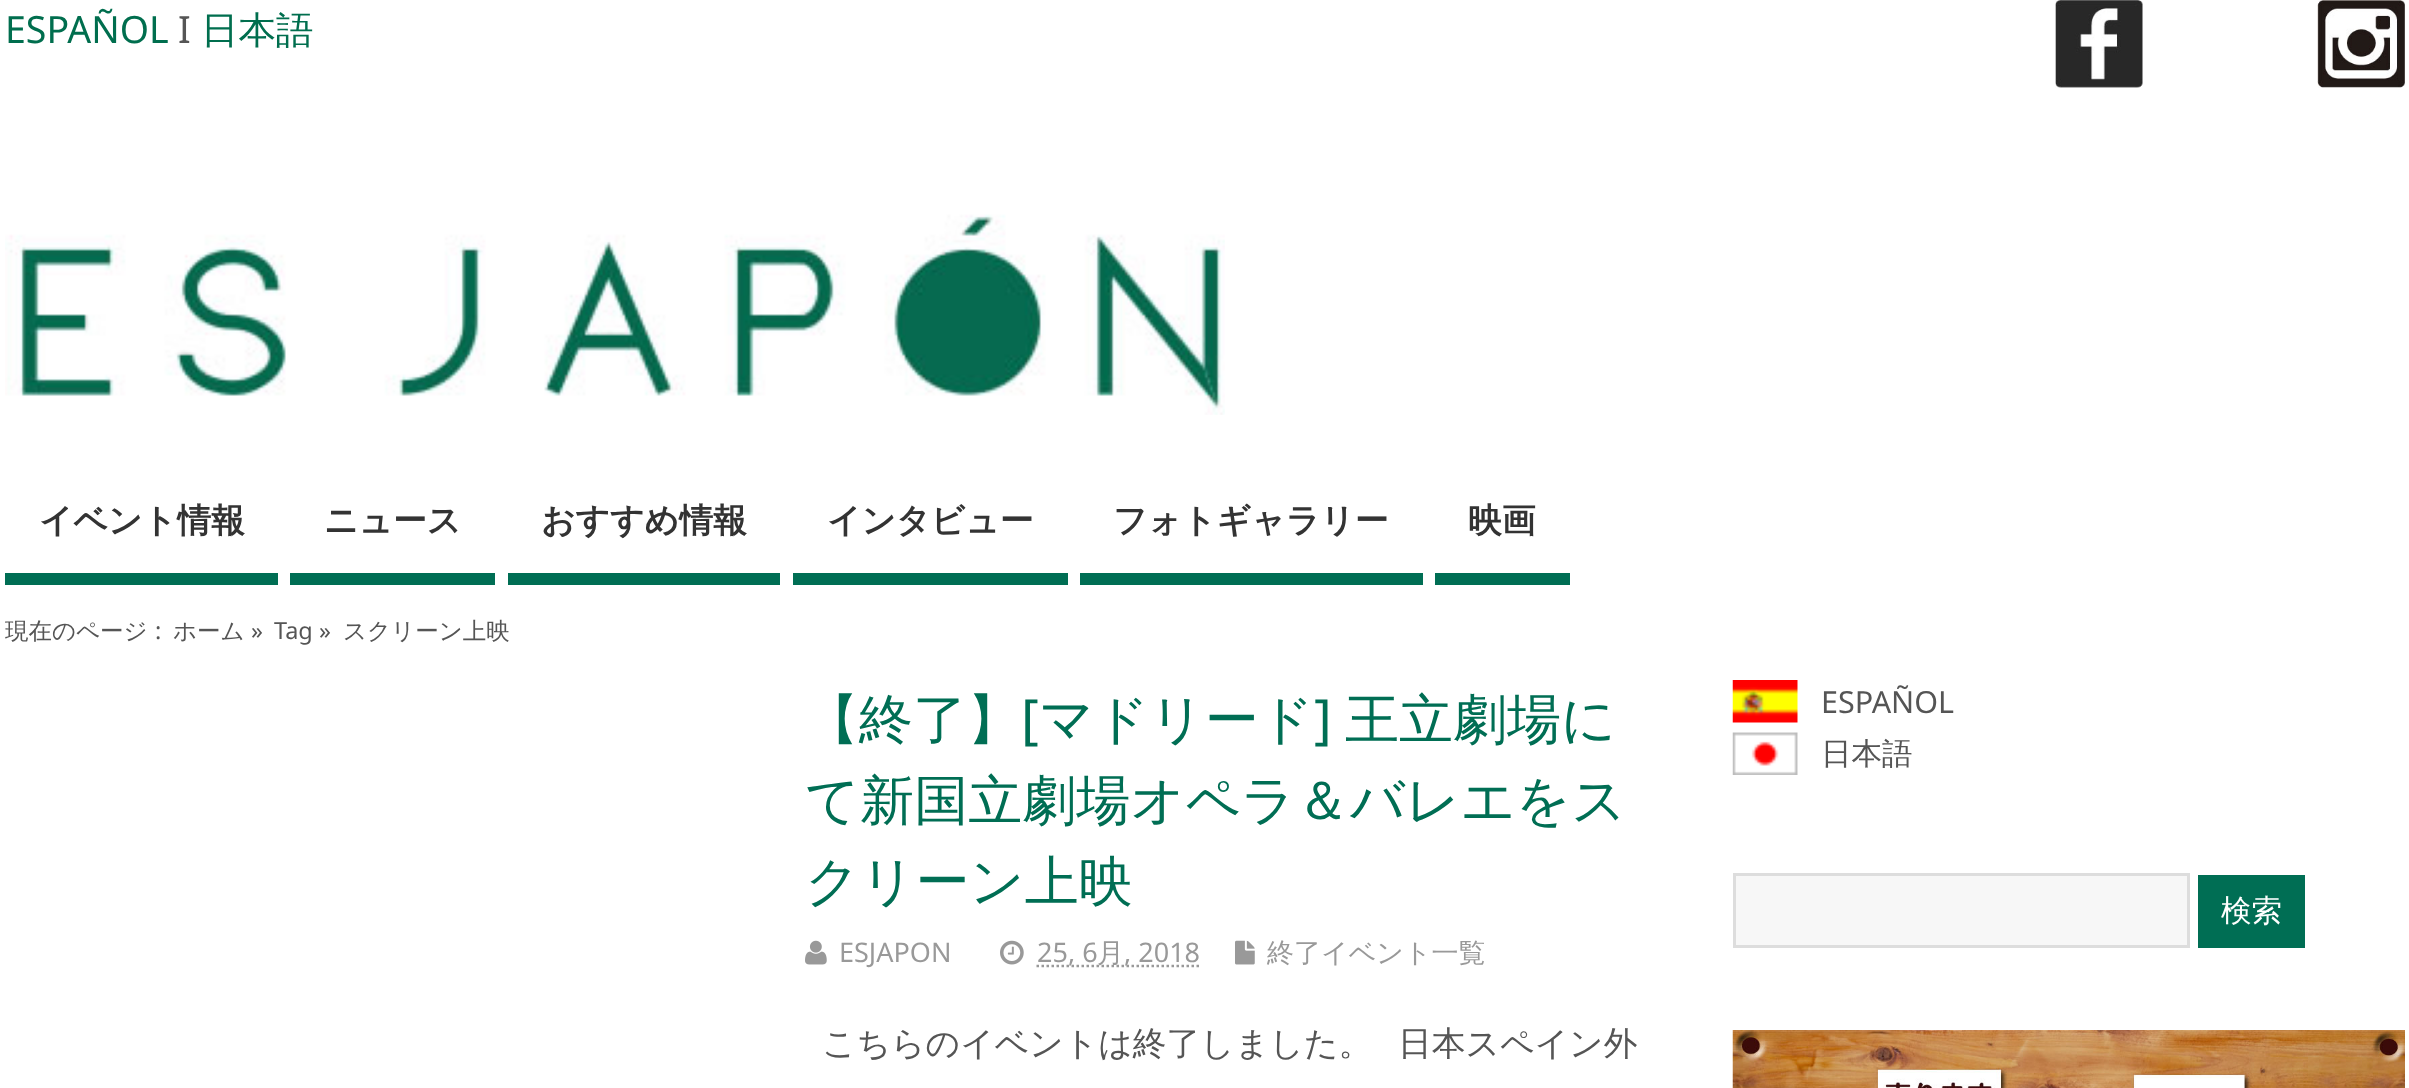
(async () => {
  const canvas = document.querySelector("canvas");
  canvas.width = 2409;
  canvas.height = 1088;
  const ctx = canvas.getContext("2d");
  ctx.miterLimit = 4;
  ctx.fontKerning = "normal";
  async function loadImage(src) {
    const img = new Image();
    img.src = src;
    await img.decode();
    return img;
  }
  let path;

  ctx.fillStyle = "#ffffff";
  ctx.fillRect(0, 0, 2409, 1088);
  ctx.drawImage(await loadImage("img/1.png"), 2055, 0, 88, 88);
  ctx.drawImage(await loadImage("img/2.png"), 2317, 0, 88, 88);
  ctx.drawImage(await loadImage("img/3.png"), 5, 214, 1220, 201);
  for (const [x, y, w, h, color] of [
    [5, 573, 273, 12, "#006e54"],
    [290, 573, 205, 12, "#006e54"],
    [508, 573, 272, 12, "#006e54"],
    [793, 573, 275, 12, "#006e54"],
    [1080, 573, 343, 12, "#006e54"],
    [1435, 573, 135, 12, "#006e54"],
  ]) {
    ctx.fillStyle = color;
    ctx.fillRect(x, y, w, h);
  }
  ctx.drawImage(await loadImage("img/4.png"), 805, 940, 22, 25);
  ctx.drawImage(await loadImage("img/5.png"), 1000, 940, 24, 25);
  path = new Path2D("M1036.5 966H1200");
  ctx.strokeStyle = "#999999";
  ctx.lineWidth = 2.5;
  ctx.setLineDash([2.5, 2.5]);
  ctx.stroke(path);
  ctx.drawImage(await loadImage("img/6.png"), 1235, 940, 20, 25);
  ctx.drawImage(await loadImage("img/7.png"), 1732, 680, 66, 43);
  ctx.drawImage(await loadImage("img/8.png"), 1732, 732, 66, 43);
  ctx.fillStyle = "#f7f7f7";
  ctx.beginPath();
  ctx.rect(1734.5, 874.5, 454, 72);
  ctx.fill();
  ctx.strokeStyle = "#dddddd";
  ctx.lineWidth = 3;
  ctx.setLineDash([]);
  ctx.stroke();
  ctx.fillStyle = "#006e54";
  ctx.fillRect(2198, 875, 107, 73);
  ctx.drawImage(await loadImage("img/9.png"), 1732, 1030, 673, 58);
  ctx.font = "37.5px Noto Sans";
  ctx.fillStyle = "#006e4e";
  ctx.fillText("ESPAÑOL", 5, 43);
  ctx.fillStyle = "#555555";
  ctx.fillText("I", 178, 43);
  ctx.font = "500 37.5px WenQuanYi Zen Hei";
  ctx.fillStyle = "#006e4e";
  ctx.fillText("日本語", 201, 43);
  ctx.font = "bold 33.75px WenQuanYi Zen Hei";
  ctx.fillStyle = "#333333";
  for (const [text, x, y] of [
    ["イベント情報", 39, 532],
    ["ニュース", 324, 532],
    ["おすすめ情報", 541, 532],
    ["インタビュー", 827, 532],
    ["フォトギャラリー", 1113, 532],
    ["映画", 1468, 532],
  ]) {
    ctx.fillText(text, x, y);
  }
  ctx.font = "500 23.5px WenQuanYi Zen Hei";
  ctx.fillStyle = "#555555";
  ctx.fillText("現在のページ", 5, 639);
  ctx.font = "23.5px Noto Sans";
  ctx.fillText(":", 155, 639);
  ctx.font = "500 23.5px WenQuanYi Zen Hei";
  ctx.fillText("ホーム", 173, 639);
  ctx.font = "23.5px Noto Sans";
  ctx.fillText("»", 251, 639);
  ctx.fillText("Tag »", 274, 639);
  ctx.font = "500 23.5px WenQuanYi Zen Hei";
  ctx.fillText("スクリーン上映", 343, 639);
  ctx.font = "500 54px WenQuanYi Zen Hei";
  ctx.fillStyle = "#006e54";
  ctx.fillText("【終了】", 805, 738);
  ctx.font = "54px Noto Sans";
  ctx.fillText("[", 1021, 738);
  ctx.font = "500 54px WenQuanYi Zen Hei";
  ctx.fillText("マドリード", 1039, 738);
  ctx.font = "54px Noto Sans";
  ctx.fillText("]", 1314, 738);
  ctx.font = "500 54px WenQuanYi Zen Hei";
  for (const [text, x, y] of [
    ["王立劇場に", 1345, 738],
    ["て新国立劇場オペラ＆バレエをス", 805, 819],
    ["クリーン上映", 805, 900],
  ]) {
    ctx.fillText(text, x, y);
  }
  ctx.font = "27px Noto Sans";
  ctx.fillStyle = "#999999";
  ctx.fillText("ESJAPON", 839, 962);
  ctx.fillText("25, 6", 1037, 962);
  ctx.font = "500 27px WenQuanYi Zen Hei";
  ctx.fillText("月", 1097, 962);
  ctx.font = "27px Noto Sans";
  ctx.fillText(", 2018", 1124, 962);
  ctx.font = "500 27px WenQuanYi Zen Hei";
  ctx.fillText("終了イベント一覧", 1267, 962);
  ctx.font = "500 33.75px WenQuanYi Zen Hei";
  ctx.fillStyle = "#555555";
  ctx.fillText("こちらのイベントは終了しました。", 822, 1055);
  ctx.fillText("日本スペイン外", 1398, 1055);
  ctx.font = "30.5px Noto Sans";
  ctx.fillText("ESPAÑOL", 1821, 713);
  ctx.font = "500 30.5px WenQuanYi Zen Hei";
  ctx.fillText("日本語", 1821, 764);
  ctx.fillStyle = "#ffffff";
  ctx.fillText("検索", 2221, 921);
})();
